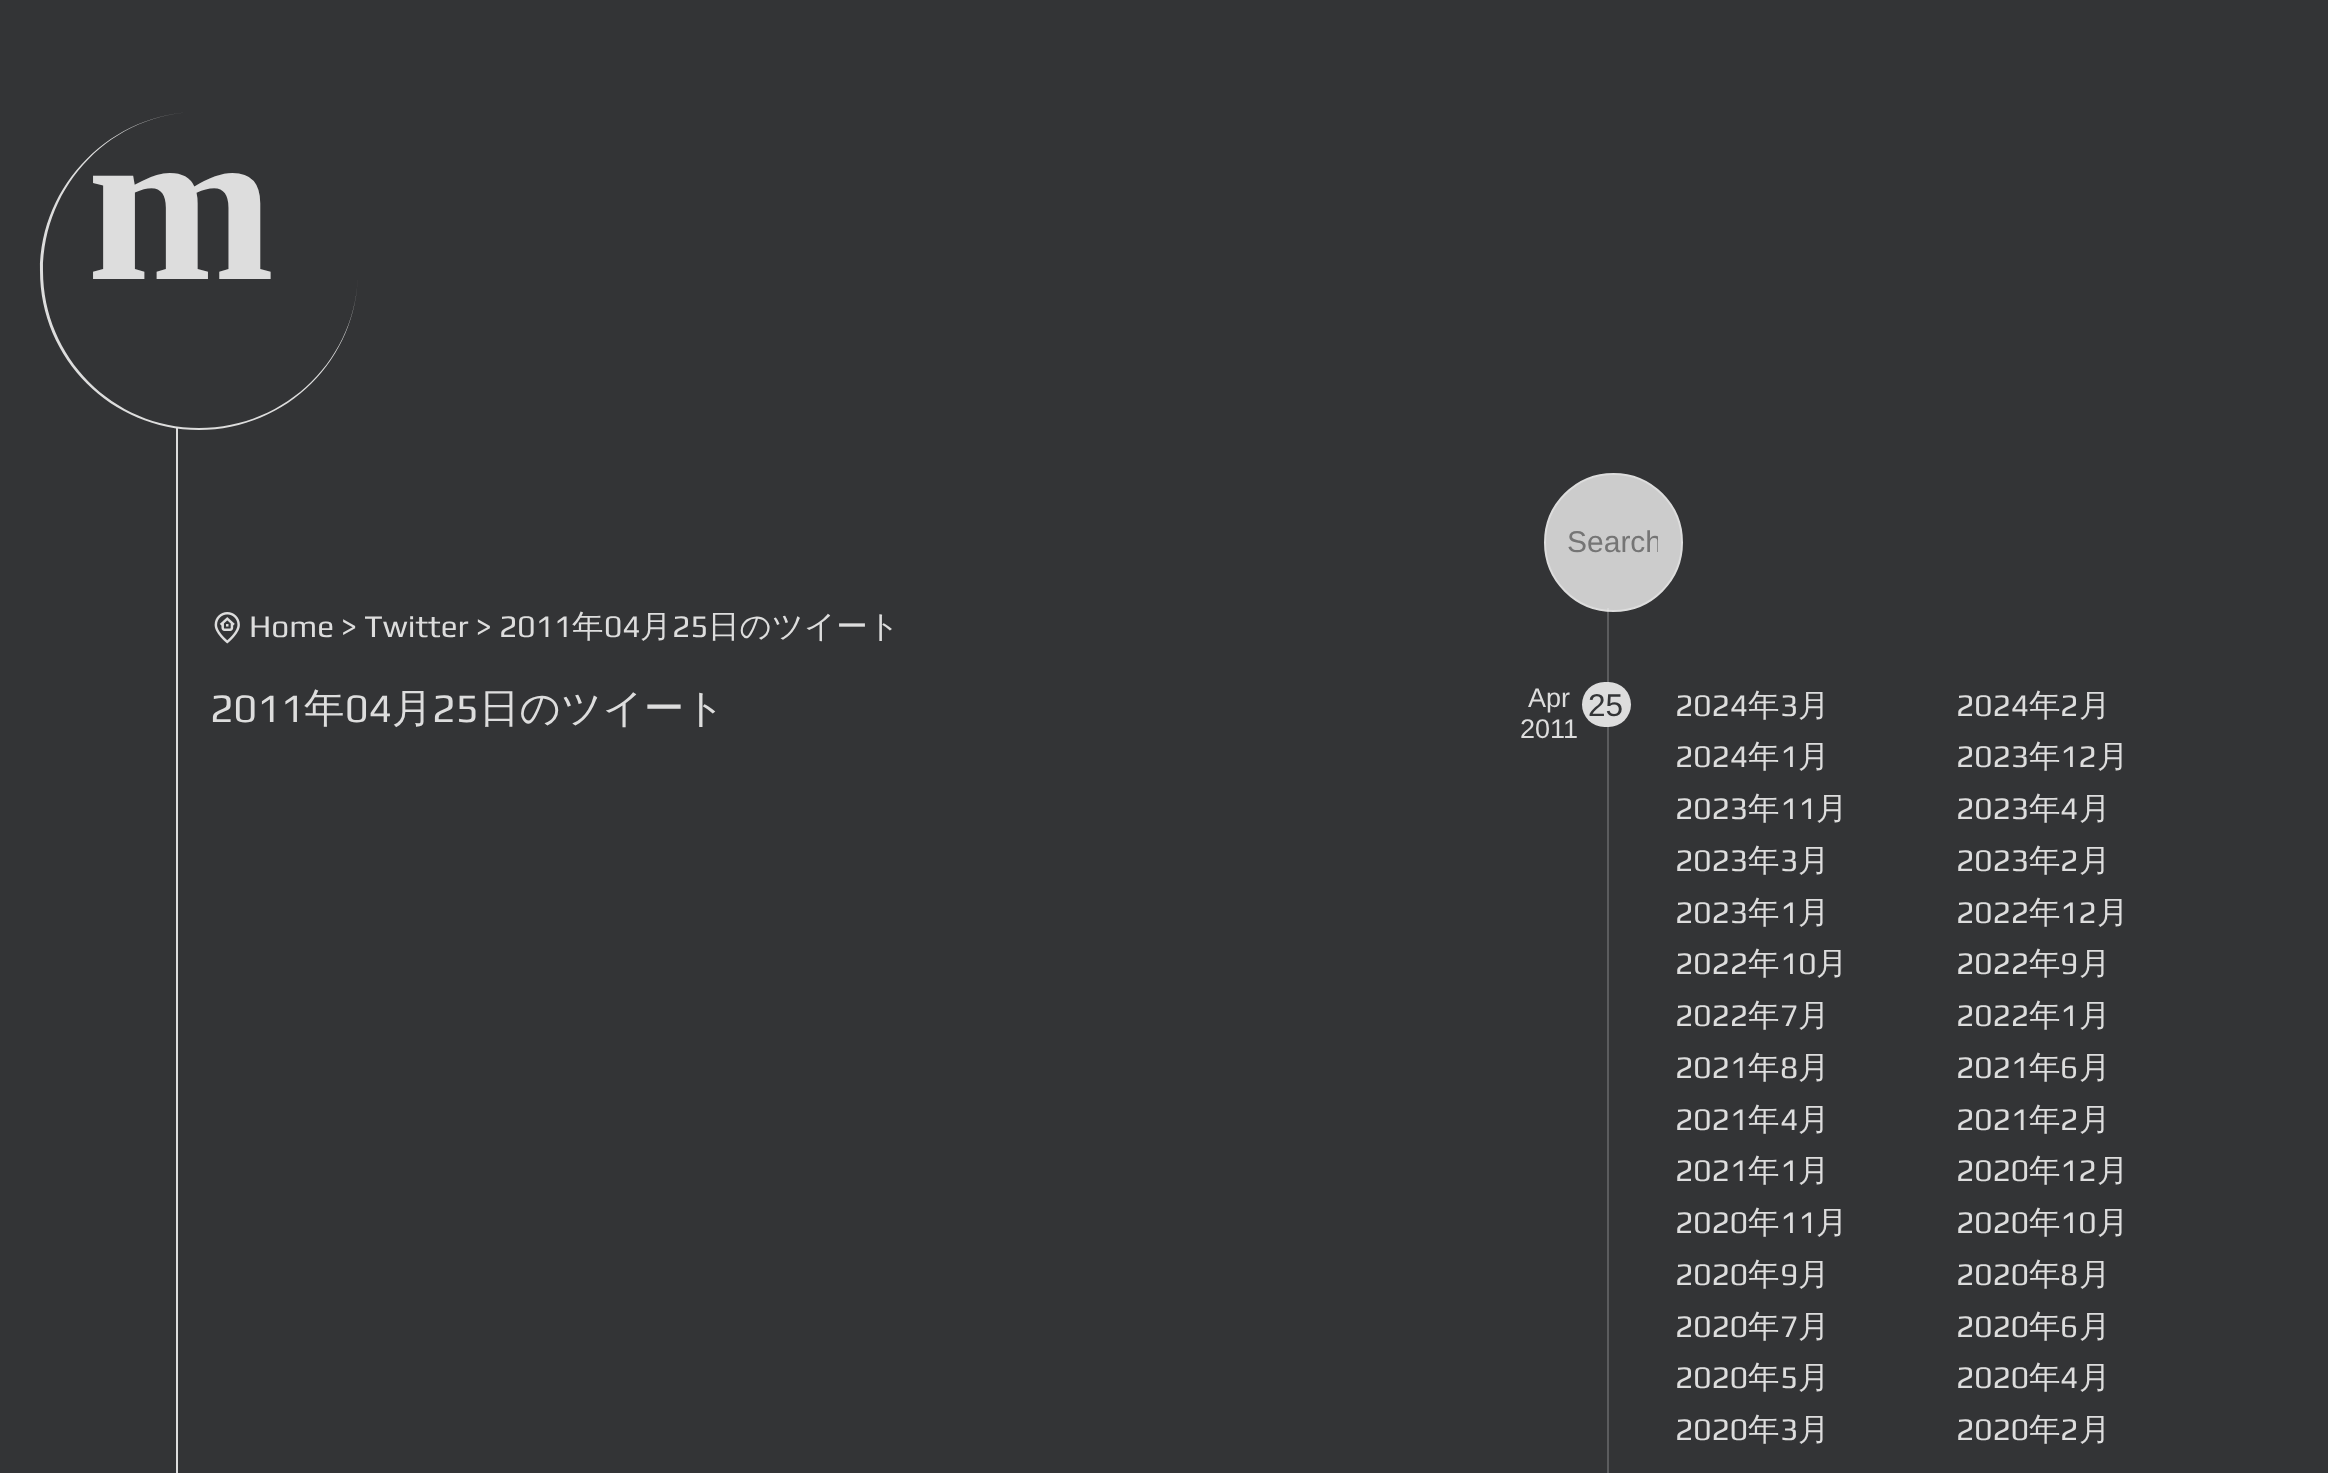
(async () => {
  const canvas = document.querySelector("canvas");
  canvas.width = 2328;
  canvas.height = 1473;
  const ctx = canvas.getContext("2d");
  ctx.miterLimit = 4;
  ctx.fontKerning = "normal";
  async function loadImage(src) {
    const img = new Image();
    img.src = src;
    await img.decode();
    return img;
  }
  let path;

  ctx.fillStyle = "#333436";
  ctx.fillRect(0, 0, 2328, 1473);
  ctx.fillStyle = "#dddddd";
  path = new Path2D("M199 112C287 112 358 184 358 271C358 359 287 430 199 430C112 430 40 359 40 271C40 184 112 112 199 112ZM199 112C287 112 358 184 358 271C358 357 287 428 199 428C113 428 43 357 43 271C43 184 113 112 199 112Z");
  ctx.fill(path, "evenodd");
  ctx.fillRect(176, 428, 2, 1045);
  ctx.fillStyle = "#cccccc";
  ctx.beginPath();
  ctx.arc(1613.5, 542.5, 68.5, 0, Math.PI * 2);
  ctx.fill();
  ctx.strokeStyle = "#dddddd";
  ctx.lineWidth = 2;
  ctx.stroke();
  ctx.fillStyle = "rgba(255, 255, 255, 0.2)";
  ctx.fillRect(1607, 608, 2, 865);
  ctx.drawImage(await loadImage("img/1.png"), 214, 612, 26, 32);
  ctx.fillStyle = "#dddddd";
  ctx.beginPath();
  ctx.roundRect(1582, 682, 49, 45, 22.5);
  ctx.fill();
  ctx.font = "bold 225px Liberation Serif";
  ctx.fillText("m", 87, 279);
  ctx.save();
  ctx.beginPath();
  ctx.rect(1568, 527, 90, 33);
  ctx.clip();
  ctx.font = "30px Liberation Sans";
  ctx.fillStyle = "#757575";
  ctx.fillText("Search", 1567, 552);
  ctx.restore();
  ctx.font = "31.5px Play";
  ctx.fillText("Home > Twitter > 2011", 249, 637);
  ctx.font = "500 31.5px WenQuanYi Zen Hei";
  ctx.fillText("年", 572, 637);
  ctx.font = "31.5px Play";
  ctx.fillText("04", 604, 637);
  ctx.font = "500 31.5px WenQuanYi Zen Hei";
  ctx.fillText("月", 640, 637);
  ctx.font = "31.5px Play";
  ctx.fillText("25", 672, 637);
  ctx.font = "500 31.5px WenQuanYi Zen Hei";
  ctx.fillText("日のツイート", 708, 637);
  ctx.font = "40.5px Play";
  ctx.fillText("2011", 210, 722);
  ctx.font = "500 40.5px WenQuanYi Zen Hei";
  ctx.fillText("年", 304, 722);
  ctx.font = "40.5px Play";
  ctx.fillText("04", 345, 722);
  ctx.font = "500 40.5px WenQuanYi Zen Hei";
  ctx.fillText("月", 392, 722);
  ctx.font = "40.5px Play";
  ctx.fillText("25", 432, 722);
  ctx.font = "500 40.5px WenQuanYi Zen Hei";
  ctx.fillText("日のツイート", 479, 722);
  ctx.font = "27px Liberation Sans";
  ctx.fillText("Apr", 1528, 707);
  ctx.fillText("2011", 1520, 738);
  ctx.font = "31.5px Liberation Sans";
  ctx.fillStyle = "#333436";
  ctx.fillText("25", 1588, 716);
  ctx.font = "31.5px Play";
  ctx.fillStyle = "#dddddd";
  ctx.fillText("2024", 1675, 716);
  ctx.font = "500 31.5px WenQuanYi Zen Hei";
  ctx.fillText("年", 1748, 716);
  ctx.font = "31.5px Play";
  ctx.fillText("3", 1780, 716);
  ctx.font = "500 31.5px WenQuanYi Zen Hei";
  ctx.fillText("月", 1798, 716);
  ctx.font = "31.5px Play";
  ctx.fillText("2024", 1956, 716);
  ctx.font = "500 31.5px WenQuanYi Zen Hei";
  ctx.fillText("年", 2029, 716);
  ctx.font = "31.5px Play";
  ctx.fillText("2", 2060, 716);
  ctx.font = "500 31.5px WenQuanYi Zen Hei";
  ctx.fillText("月", 2079, 716);
  ctx.font = "31.5px Play";
  ctx.fillText("2024", 1675, 767);
  ctx.font = "500 31.5px WenQuanYi Zen Hei";
  ctx.fillText("年", 1748, 767);
  ctx.font = "31.5px Play";
  ctx.fillText("1", 1780, 767);
  ctx.font = "500 31.5px WenQuanYi Zen Hei";
  ctx.fillText("月", 1798, 767);
  ctx.font = "31.5px Play";
  ctx.fillText("2023", 1956, 767);
  ctx.font = "500 31.5px WenQuanYi Zen Hei";
  ctx.fillText("年", 2029, 767);
  ctx.font = "31.5px Play";
  ctx.fillText("12", 2060, 767);
  ctx.font = "500 31.5px WenQuanYi Zen Hei";
  ctx.fillText("月", 2097, 767);
  ctx.font = "31.5px Play";
  ctx.fillText("2023", 1675, 819);
  ctx.font = "500 31.5px WenQuanYi Zen Hei";
  ctx.fillText("年", 1748, 819);
  ctx.font = "31.5px Play";
  ctx.fillText("11", 1780, 819);
  ctx.font = "500 31.5px WenQuanYi Zen Hei";
  ctx.fillText("月", 1816, 819);
  ctx.font = "31.5px Play";
  ctx.fillText("2023", 1956, 819);
  ctx.font = "500 31.5px WenQuanYi Zen Hei";
  ctx.fillText("年", 2029, 819);
  ctx.font = "31.5px Play";
  ctx.fillText("4", 2060, 819);
  ctx.font = "500 31.5px WenQuanYi Zen Hei";
  ctx.fillText("月", 2079, 819);
  ctx.font = "31.5px Play";
  ctx.fillText("2023", 1675, 871);
  ctx.font = "500 31.5px WenQuanYi Zen Hei";
  ctx.fillText("年", 1748, 871);
  ctx.font = "31.5px Play";
  ctx.fillText("3", 1780, 871);
  ctx.font = "500 31.5px WenQuanYi Zen Hei";
  ctx.fillText("月", 1798, 871);
  ctx.font = "31.5px Play";
  ctx.fillText("2023", 1956, 871);
  ctx.font = "500 31.5px WenQuanYi Zen Hei";
  ctx.fillText("年", 2029, 871);
  ctx.font = "31.5px Play";
  ctx.fillText("2", 2060, 871);
  ctx.font = "500 31.5px WenQuanYi Zen Hei";
  ctx.fillText("月", 2079, 871);
  ctx.font = "31.5px Play";
  ctx.fillText("2023", 1675, 923);
  ctx.font = "500 31.5px WenQuanYi Zen Hei";
  ctx.fillText("年", 1748, 923);
  ctx.font = "31.5px Play";
  ctx.fillText("1", 1780, 923);
  ctx.font = "500 31.5px WenQuanYi Zen Hei";
  ctx.fillText("月", 1798, 923);
  ctx.font = "31.5px Play";
  ctx.fillText("2022", 1956, 923);
  ctx.font = "500 31.5px WenQuanYi Zen Hei";
  ctx.fillText("年", 2029, 923);
  ctx.font = "31.5px Play";
  ctx.fillText("12", 2060, 923);
  ctx.font = "500 31.5px WenQuanYi Zen Hei";
  ctx.fillText("月", 2097, 923);
  ctx.font = "31.5px Play";
  ctx.fillText("2022", 1675, 974);
  ctx.font = "500 31.5px WenQuanYi Zen Hei";
  ctx.fillText("年", 1748, 974);
  ctx.font = "31.5px Play";
  ctx.fillText("10", 1780, 974);
  ctx.font = "500 31.5px WenQuanYi Zen Hei";
  ctx.fillText("月", 1816, 974);
  ctx.font = "31.5px Play";
  ctx.fillText("2022", 1956, 974);
  ctx.font = "500 31.5px WenQuanYi Zen Hei";
  ctx.fillText("年", 2029, 974);
  ctx.font = "31.5px Play";
  ctx.fillText("9", 2060, 974);
  ctx.font = "500 31.5px WenQuanYi Zen Hei";
  ctx.fillText("月", 2079, 974);
  ctx.font = "31.5px Play";
  ctx.fillText("2022", 1675, 1026);
  ctx.font = "500 31.5px WenQuanYi Zen Hei";
  ctx.fillText("年", 1748, 1026);
  ctx.font = "31.5px Play";
  ctx.fillText("7", 1780, 1026);
  ctx.font = "500 31.5px WenQuanYi Zen Hei";
  ctx.fillText("月", 1798, 1026);
  ctx.font = "31.5px Play";
  ctx.fillText("2022", 1956, 1026);
  ctx.font = "500 31.5px WenQuanYi Zen Hei";
  ctx.fillText("年", 2029, 1026);
  ctx.font = "31.5px Play";
  ctx.fillText("1", 2060, 1026);
  ctx.font = "500 31.5px WenQuanYi Zen Hei";
  ctx.fillText("月", 2079, 1026);
  ctx.font = "31.5px Play";
  ctx.fillText("2021", 1675, 1078);
  ctx.font = "500 31.5px WenQuanYi Zen Hei";
  ctx.fillText("年", 1748, 1078);
  ctx.font = "31.5px Play";
  ctx.fillText("8", 1780, 1078);
  ctx.font = "500 31.5px WenQuanYi Zen Hei";
  ctx.fillText("月", 1798, 1078);
  ctx.font = "31.5px Play";
  ctx.fillText("2021", 1956, 1078);
  ctx.font = "500 31.5px WenQuanYi Zen Hei";
  ctx.fillText("年", 2029, 1078);
  ctx.font = "31.5px Play";
  ctx.fillText("6", 2060, 1078);
  ctx.font = "500 31.5px WenQuanYi Zen Hei";
  ctx.fillText("月", 2079, 1078);
  ctx.font = "31.5px Play";
  ctx.fillText("2021", 1675, 1130);
  ctx.font = "500 31.5px WenQuanYi Zen Hei";
  ctx.fillText("年", 1748, 1130);
  ctx.font = "31.5px Play";
  ctx.fillText("4", 1780, 1130);
  ctx.font = "500 31.5px WenQuanYi Zen Hei";
  ctx.fillText("月", 1798, 1130);
  ctx.font = "31.5px Play";
  ctx.fillText("2021", 1956, 1130);
  ctx.font = "500 31.5px WenQuanYi Zen Hei";
  ctx.fillText("年", 2029, 1130);
  ctx.font = "31.5px Play";
  ctx.fillText("2", 2060, 1130);
  ctx.font = "500 31.5px WenQuanYi Zen Hei";
  ctx.fillText("月", 2079, 1130);
  ctx.font = "31.5px Play";
  ctx.fillText("2021", 1675, 1181);
  ctx.font = "500 31.5px WenQuanYi Zen Hei";
  ctx.fillText("年", 1748, 1181);
  ctx.font = "31.5px Play";
  ctx.fillText("1", 1780, 1181);
  ctx.font = "500 31.5px WenQuanYi Zen Hei";
  ctx.fillText("月", 1798, 1181);
  ctx.font = "31.5px Play";
  ctx.fillText("2020", 1956, 1181);
  ctx.font = "500 31.5px WenQuanYi Zen Hei";
  ctx.fillText("年", 2029, 1181);
  ctx.font = "31.5px Play";
  ctx.fillText("12", 2060, 1181);
  ctx.font = "500 31.5px WenQuanYi Zen Hei";
  ctx.fillText("月", 2097, 1181);
  ctx.font = "31.5px Play";
  ctx.fillText("2020", 1675, 1233);
  ctx.font = "500 31.5px WenQuanYi Zen Hei";
  ctx.fillText("年", 1748, 1233);
  ctx.font = "31.5px Play";
  ctx.fillText("11", 1780, 1233);
  ctx.font = "500 31.5px WenQuanYi Zen Hei";
  ctx.fillText("月", 1816, 1233);
  ctx.font = "31.5px Play";
  ctx.fillText("2020", 1956, 1233);
  ctx.font = "500 31.5px WenQuanYi Zen Hei";
  ctx.fillText("年", 2029, 1233);
  ctx.font = "31.5px Play";
  ctx.fillText("10", 2060, 1233);
  ctx.font = "500 31.5px WenQuanYi Zen Hei";
  ctx.fillText("月", 2097, 1233);
  ctx.font = "31.5px Play";
  ctx.fillText("2020", 1675, 1285);
  ctx.font = "500 31.5px WenQuanYi Zen Hei";
  ctx.fillText("年", 1748, 1285);
  ctx.font = "31.5px Play";
  ctx.fillText("9", 1780, 1285);
  ctx.font = "500 31.5px WenQuanYi Zen Hei";
  ctx.fillText("月", 1798, 1285);
  ctx.font = "31.5px Play";
  ctx.fillText("2020", 1956, 1285);
  ctx.font = "500 31.5px WenQuanYi Zen Hei";
  ctx.fillText("年", 2029, 1285);
  ctx.font = "31.5px Play";
  ctx.fillText("8", 2060, 1285);
  ctx.font = "500 31.5px WenQuanYi Zen Hei";
  ctx.fillText("月", 2079, 1285);
  ctx.font = "31.5px Play";
  ctx.fillText("2020", 1675, 1337);
  ctx.font = "500 31.5px WenQuanYi Zen Hei";
  ctx.fillText("年", 1748, 1337);
  ctx.font = "31.5px Play";
  ctx.fillText("7", 1780, 1337);
  ctx.font = "500 31.5px WenQuanYi Zen Hei";
  ctx.fillText("月", 1798, 1337);
  ctx.font = "31.5px Play";
  ctx.fillText("2020", 1956, 1337);
  ctx.font = "500 31.5px WenQuanYi Zen Hei";
  ctx.fillText("年", 2029, 1337);
  ctx.font = "31.5px Play";
  ctx.fillText("6", 2060, 1337);
  ctx.font = "500 31.5px WenQuanYi Zen Hei";
  ctx.fillText("月", 2079, 1337);
  ctx.font = "31.5px Play";
  ctx.fillText("2020", 1675, 1388);
  ctx.font = "500 31.5px WenQuanYi Zen Hei";
  ctx.fillText("年", 1748, 1388);
  ctx.font = "31.5px Play";
  ctx.fillText("5", 1780, 1388);
  ctx.font = "500 31.5px WenQuanYi Zen Hei";
  ctx.fillText("月", 1798, 1388);
  ctx.font = "31.5px Play";
  ctx.fillText("2020", 1956, 1388);
  ctx.font = "500 31.5px WenQuanYi Zen Hei";
  ctx.fillText("年", 2029, 1388);
  ctx.font = "31.5px Play";
  ctx.fillText("4", 2060, 1388);
  ctx.font = "500 31.5px WenQuanYi Zen Hei";
  ctx.fillText("月", 2079, 1388);
  ctx.font = "31.5px Play";
  ctx.fillText("2020", 1675, 1440);
  ctx.font = "500 31.5px WenQuanYi Zen Hei";
  ctx.fillText("年", 1748, 1440);
  ctx.font = "31.5px Play";
  ctx.fillText("3", 1780, 1440);
  ctx.font = "500 31.5px WenQuanYi Zen Hei";
  ctx.fillText("月", 1798, 1440);
  ctx.font = "31.5px Play";
  ctx.fillText("2020", 1956, 1440);
  ctx.font = "500 31.5px WenQuanYi Zen Hei";
  ctx.fillText("年", 2029, 1440);
  ctx.font = "31.5px Play";
  ctx.fillText("2", 2060, 1440);
  ctx.font = "500 31.5px WenQuanYi Zen Hei";
  ctx.fillText("月", 2079, 1440);
})();
